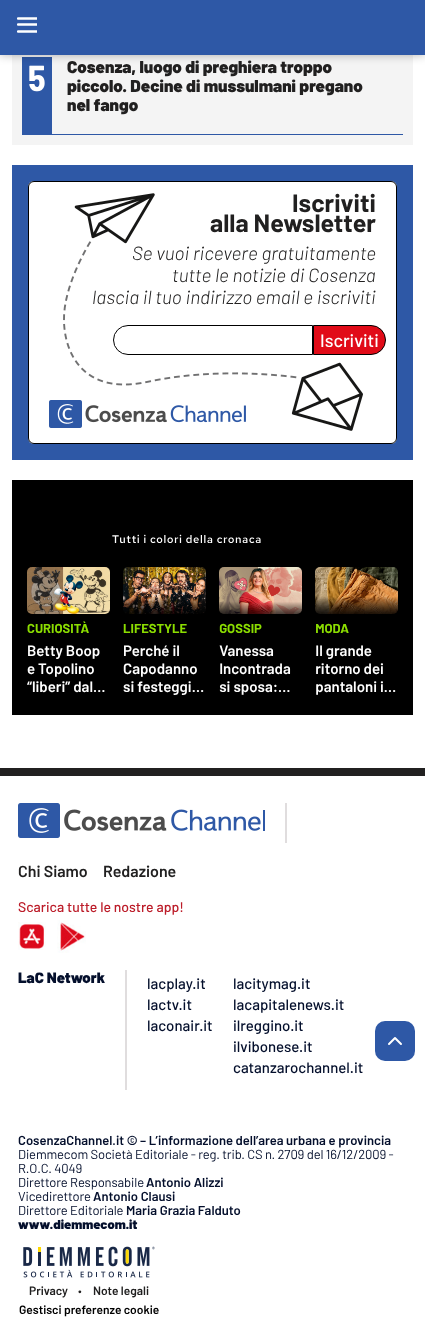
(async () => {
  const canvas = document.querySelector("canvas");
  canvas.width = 425;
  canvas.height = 1326;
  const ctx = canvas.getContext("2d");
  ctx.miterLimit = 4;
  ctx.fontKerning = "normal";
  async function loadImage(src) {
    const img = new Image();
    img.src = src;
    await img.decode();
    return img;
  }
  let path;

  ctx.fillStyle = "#ffffff";
  ctx.fillRect(0, 0, 425, 1326);
  ctx.fillStyle = "#f4f4f4";
  ctx.fillRect(12, 55, 401, 90);
  ctx.fillStyle = "#2e58a6";
  ctx.fillRect(22, 57, 30, 77);
  ctx.fillStyle = "rgba(0, 0, 0, 0.3)";
  ctx.filter = "blur(5px)";
  ctx.beginPath();
  ctx.rect(0, 0, 425, 55);
  ctx.fill();
  ctx.filter = "none";
  ctx.fillStyle = "#2e58a6";
  ctx.fillRect(0, 0, 425, 55);
  ctx.save();
  ctx.beginPath();
  ctx.rect(17, 13, 20, 25);
  ctx.clip();
  path = new Path2D("M18 18.5H37M18 24.5H37M18 31.5H37");
  ctx.strokeStyle = "#ffffff";
  ctx.lineWidth = 2.3;
  ctx.lineCap = "round";
  ctx.stroke(path);
  ctx.restore();
  ctx.fillRect(22, 134, 381, 1);
  ctx.fillRect(12, 165, 401, 295);
  ctx.fillStyle = "#ffffff";
  ctx.beginPath();
  ctx.roundRect(28, 181, 369, 263, 6);
  ctx.fill();
  ctx.drawImage(await loadImage("img/1.png"), 63, 193, 300, 238);
  ctx.beginPath();
  ctx.roundRect(28.5, 181.5, 368, 262, 5.5);
  ctx.strokeStyle = "#000000";
  ctx.stroke();
  ctx.beginPath();
  ctx.roundRect(113.5, 325.5, 199, 29, [14.5, 0, 0, 14.5]);
  ctx.stroke();
  ctx.fillStyle = "#e10b18";
  ctx.beginPath();
  ctx.roundRect(313.5, 325.5, 72, 29, [0, 14.5, 14.5, 0]);
  ctx.fill();
  ctx.stroke();
  ctx.drawImage(await loadImage("img/2.png"), 49, 400, 197, 28);
  ctx.drawImage(await loadImage("img/3.png"), 12, 480, 401, 235);
  ctx.fillStyle = "#212020";
  ctx.fillRect(0, 768, 425, 8);
  ctx.drawImage(await loadImage("img/4.png"), 18, 803, 247, 35);
  ctx.fillStyle = "#e0ddde";
  ctx.fillRect(285, 803, 2, 40);
  ctx.drawImage(await loadImage("img/5.png"), 18, 922, 28, 28);
  ctx.drawImage(await loadImage("img/6.png"), 57, 920, 29, 33);
  ctx.fillRect(125, 970, 2, 120);
  ctx.drawImage(await loadImage("img/7.png"), 23, 1246, 132, 32);
  ctx.fillStyle = "#2e58a6";
  ctx.beginPath();
  ctx.roundRect(375, 1021, 40, 40, 10);
  ctx.fill();
  path = new Path2D("M389 1044L395 1038L401 1044");
  ctx.strokeStyle = "#ffffff";
  ctx.lineWidth = 2;
  ctx.lineCap = "round";
  ctx.lineJoin = "round";
  ctx.stroke(path);
  ctx.font = "bold 36px Barlow Semi Condensed";
  ctx.fillStyle = "#ffffff";
  ctx.fillText("5", 28, 91);
  ctx.font = "900 17px Barlow";
  ctx.fillStyle = "#212020";
  for (const [text, x, y] of [
    ["Cosenza, luogo di preghiera troppo", 67, 73],
    ["piccolo. Decine di mussulmani pregano", 67, 92],
    ["nel fango", 67, 111],
  ]) {
    ctx.fillText(text, x, y);
  }
  ctx.font = "bold 25px Barlow";
  ctx.fillText("Iscriviti", 292, 212);
  ctx.fillText("alla Newsletter", 210, 232);
  ctx.font = "italic 300 19px Barlow";
  for (const [text, x, y] of [
    ["Se vuoi ricevere gratuitamente", 132, 260],
    ["tutte le notizie di Cosenza", 172, 282],
    ["lascia il tuo indirizzo email e iscriviti", 92, 304],
  ]) {
    ctx.fillText(text, x, y);
  }
  ctx.font = "500 18px Barlow";
  ctx.fillStyle = "#ffffff";
  ctx.fillText("Iscriviti", 320, 347);
  ctx.font = "600 16px Barlow";
  ctx.fillStyle = "#212020";
  ctx.fillText("Chi Siamo", 18, 877);
  ctx.fillText("Redazione", 103, 877);
  ctx.font = "500 14px Barlow";
  ctx.fillStyle = "#bc1c29";
  ctx.fillText("Scarica tutte le nostre app!", 18, 912);
  ctx.font = "900 15px Barlow";
  ctx.fillStyle = "#040f2c";
  ctx.fillText("LaC Network", 18, 983);
  ctx.font = "500 15px Barlow";
  for (const [text, x, y] of [
    ["lacplay.it", 147, 989],
    ["lactv.it", 147, 1010],
    ["laconair.it", 147, 1031],
    ["lacitymag.it", 233, 989],
    ["lacapitalenews.it", 233, 1010],
    ["ilreggino.it", 233, 1031],
    ["ilvibonese.it", 233, 1052],
    ["catanzarochannel.it", 233, 1073],
  ]) {
    ctx.fillText(text, x, y);
  }
  ctx.font = "600 13px Barlow";
  ctx.fillText("CosenzaChannel.it © – L’informazione dell’area urbana e provincia", 18, 1145);
  ctx.letterSpacing = "-0.13px";
  ctx.font = "13px Barlow";
  for (const [text, x, y] of [
    ["Diemmecom Società Editoriale - reg. trib. CS n. 2709 del 16/12/2009 -", 18, 1159],
    ["R.O.C. 4049", 18, 1173],
    ["Direttore Responsabile", 18, 1187],
  ]) {
    ctx.fillText(text, x, y);
  }
  ctx.letterSpacing = "0px";
  ctx.font = "600 13px Barlow";
  ctx.fillText("Antonio Alizzi", 146, 1187);
  ctx.letterSpacing = "-0.13px";
  ctx.font = "13px Barlow";
  ctx.fillText("Vicedirettore", 18, 1201);
  ctx.letterSpacing = "0px";
  ctx.font = "600 13px Barlow";
  ctx.fillText("Antonio Clausi", 93, 1201);
  ctx.letterSpacing = "-0.13px";
  ctx.font = "13px Barlow";
  ctx.fillText("Direttore Editoriale", 18, 1215);
  ctx.letterSpacing = "0px";
  ctx.font = "600 13px Barlow";
  ctx.fillText("Maria Grazia Falduto", 126, 1215);
  ctx.font = "900 13px Barlow";
  ctx.fillText("www.diemmecom.it", 18, 1229);
  ctx.font = "600 12px Barlow";
  ctx.fillStyle = "#212020";
  ctx.fillText("Privacy", 29, 1295);
  ctx.font = "12px Barlow";
  ctx.fillText("•", 78, 1295);
  ctx.font = "600 12px Barlow";
  ctx.fillText("Note legali", 93, 1295);
  ctx.fillStyle = "#000000";
  ctx.fillText("Gestisci preferenze cookie", 19, 1314);
})();
